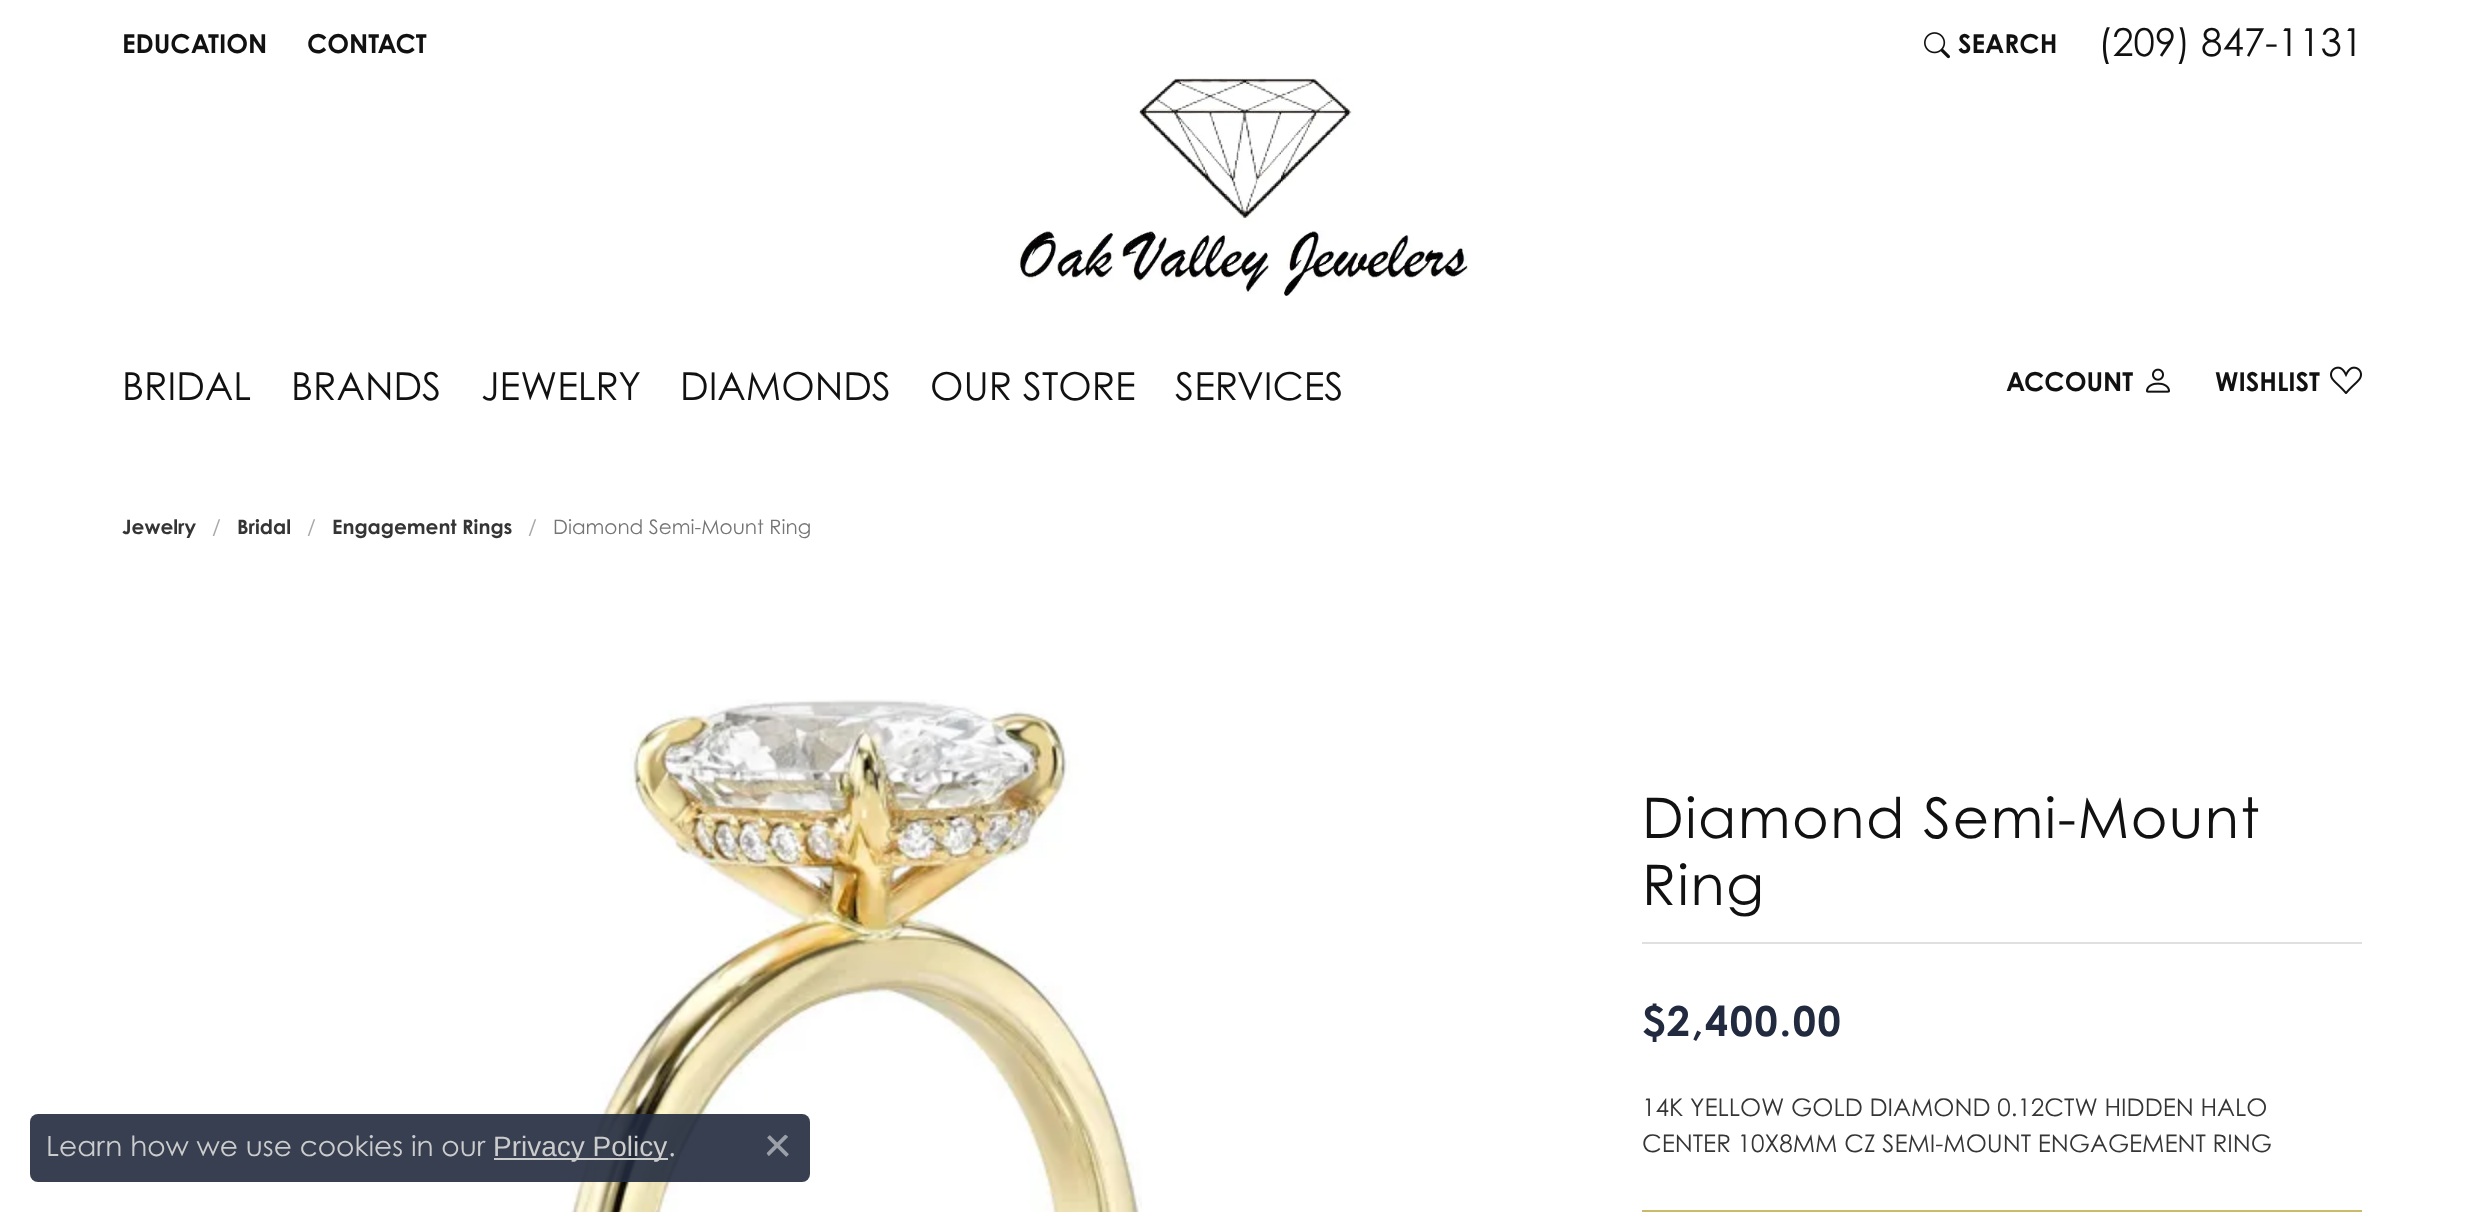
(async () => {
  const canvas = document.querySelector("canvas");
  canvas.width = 2484;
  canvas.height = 1212;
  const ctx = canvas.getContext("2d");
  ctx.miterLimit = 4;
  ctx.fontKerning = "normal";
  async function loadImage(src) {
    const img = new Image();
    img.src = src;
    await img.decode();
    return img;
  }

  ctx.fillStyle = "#ffffff";
  ctx.fillRect(0, 0, 2484, 1212);
  ctx.drawImage(await loadImage("img/1.png"), 1924, 32, 26, 27);
  ctx.drawImage(await loadImage("img/2.png"), 1018, 78, 450, 218);
  ctx.drawImage(await loadImage("img/3.png"), 2146, 368, 24, 25);
  ctx.drawImage(await loadImage("img/4.png"), 2330, 366, 32, 28);
  ctx.drawImage(await loadImage("img/5.png"), 571, 699, 571, 513);
  ctx.fillStyle = "#e0e0e0";
  ctx.fillRect(1642, 942, 720, 2);
  ctx.fillStyle = "#c9ba6c";
  ctx.fillRect(1642, 1210, 720, 2);
  ctx.fillStyle = "rgba(33, 42, 62, 0.9)";
  ctx.beginPath();
  ctx.roundRect(30, 1114, 780, 68, 8);
  ctx.fill();
  ctx.fillStyle = "#cccccc";
  ctx.fillRect(494, 1158, 174, 2);
  ctx.drawImage(await loadImage("img/6.png"), 766, 1134, 23, 23);
  ctx.font = "bold 26px Century Gothic";
  ctx.fillStyle = "#111111";
  for (const [text, x, y] of [
    ["EDUCATION", 122, 53],
    ["CONTACT", 307, 53],
    ["SEARCH", 1958, 53],
  ]) {
    ctx.fillText(text, x, y);
  }
  ctx.font = "38.5px Century Gothic";
  for (const [text, x, y] of [
    ["(209) 847-1131", 2098, 56],
    ["BRIDAL", 122, 400],
    ["BRANDS", 291, 400],
    ["JEWELRY", 481, 400],
    ["DIAMONDS", 680, 400],
    ["OUR STORE", 930, 400],
    ["SERVICES", 1175, 400],
  ]) {
    ctx.fillText(text, x, y);
  }
  ctx.font = "bold 26px Century Gothic";
  ctx.fillText("ACCOUNT", 2006, 391);
  ctx.fillText("WISHLIST", 2215, 391);
  ctx.font = "bold 20px Century Gothic";
  ctx.fillStyle = "#353535";
  ctx.fillText("Jewelry", 122, 534);
  ctx.font = "20px Century Gothic";
  ctx.fillStyle = "#a8a8a8";
  ctx.fillText("/", 212, 534);
  ctx.font = "bold 20px Century Gothic";
  ctx.fillStyle = "#353535";
  ctx.fillText("Bridal", 237, 534);
  ctx.font = "20px Century Gothic";
  ctx.fillStyle = "#a8a8a8";
  ctx.fillText("/", 307, 534);
  ctx.font = "bold 20px Century Gothic";
  ctx.fillStyle = "#353535";
  ctx.fillText("Engagement Rings", 332, 534);
  ctx.font = "20px Century Gothic";
  ctx.fillStyle = "#a8a8a8";
  ctx.fillText("/", 528, 534);
  ctx.fillStyle = "#757575";
  ctx.fillText("Diamond Semi-Mount Ring", 553, 534);
  ctx.letterSpacing = "1.6px";
  ctx.font = "56px Century Gothic";
  ctx.fillStyle = "#111111";
  ctx.fillText("Diamond Semi-Mount", 1642, 838);
  ctx.fillText("Ring", 1642, 905);
  ctx.font = "bold 41.5px Century Gothic";
  ctx.fillStyle = "#212a3e";
  ctx.fillText("$2,400.00", 1642, 1036);
  ctx.letterSpacing = "0px";
  ctx.font = "24.3px Century Gothic";
  ctx.fillStyle = "#353535";
  ctx.fillText("14K YELLOW GOLD DIAMOND 0.12CTW HIDDEN HALO", 1642, 1116);
  ctx.fillText("CENTER 10X8MM CZ SEMI-MOUNT ENGAGEMENT RING", 1642, 1152);
  ctx.font = "28px Century Gothic";
  ctx.fillStyle = "#cccccc";
  ctx.fillText("Learn how we use cookies in our", 46, 1156);
  ctx.font = "28px Liberation Sans";
  ctx.fillText("Privacy Policy", 493, 1156);
  ctx.font = "28px Century Gothic";
  ctx.fillText(".", 668, 1156);
})();
